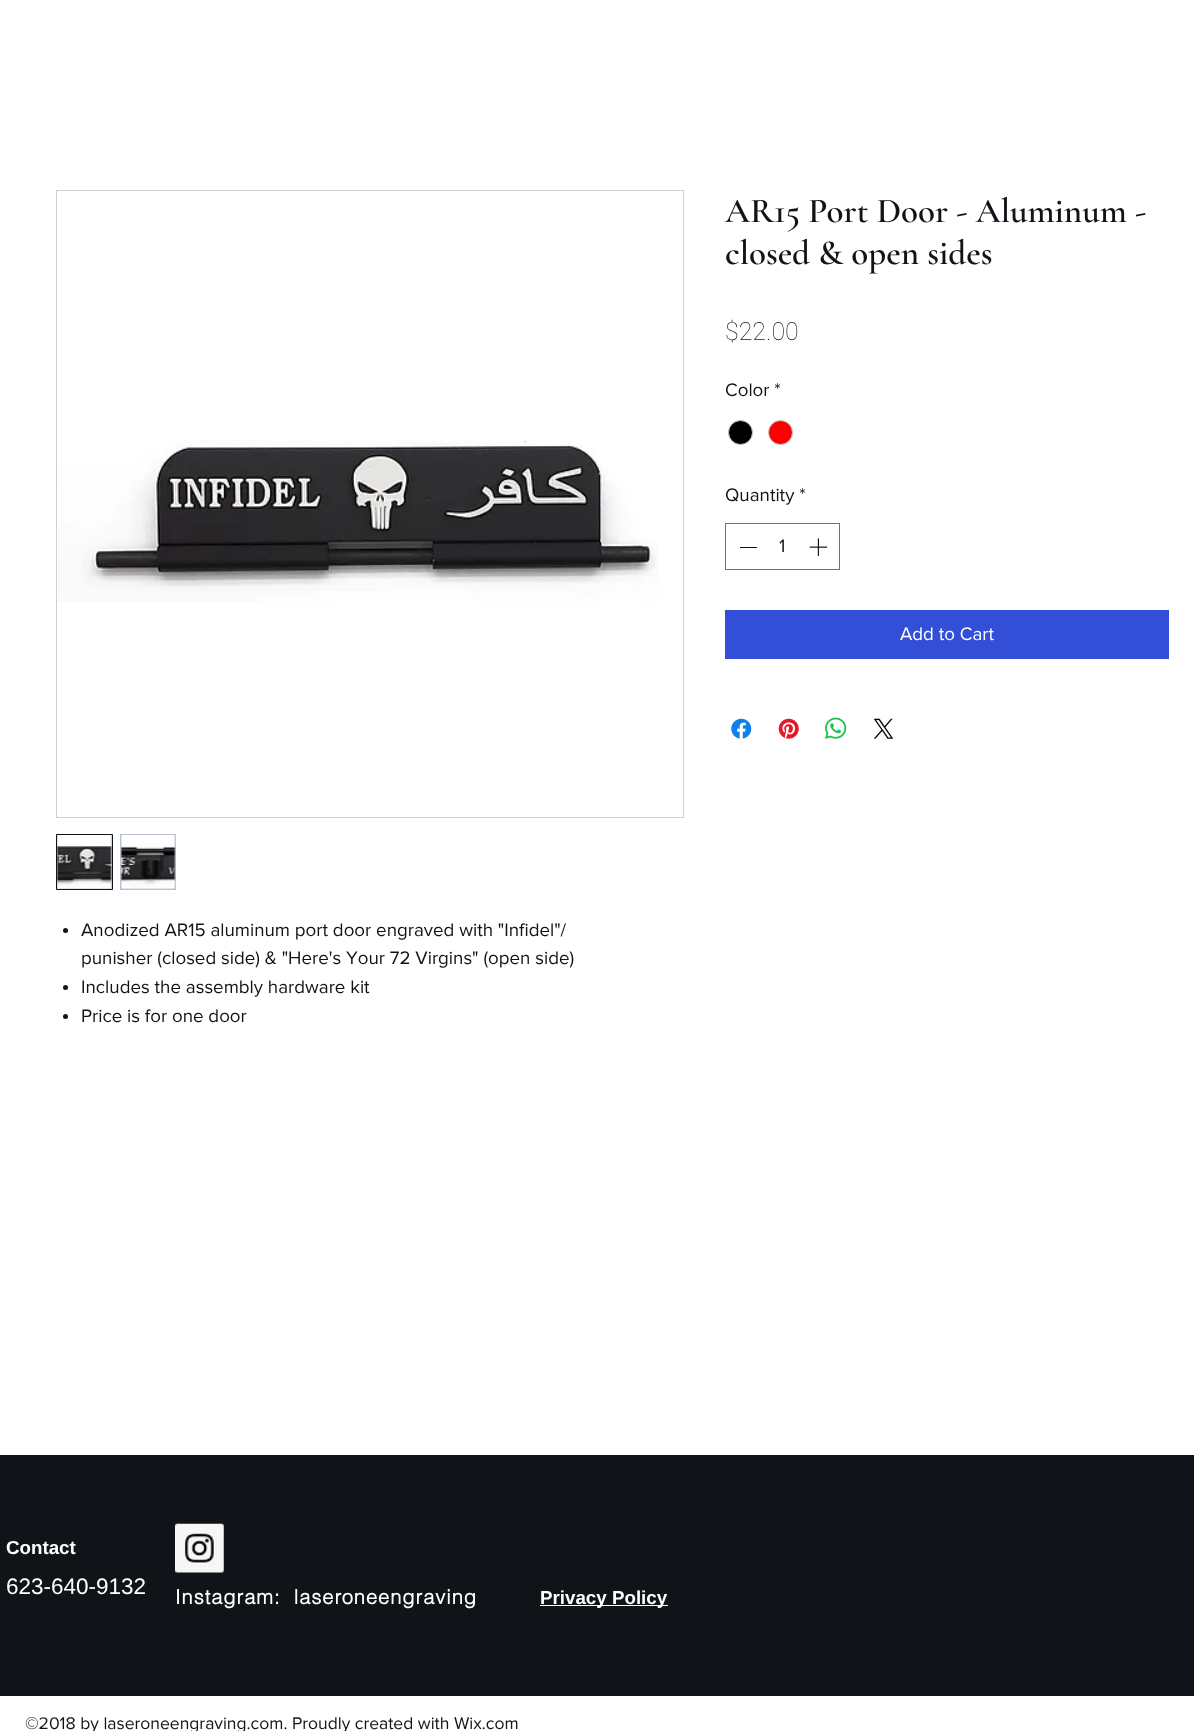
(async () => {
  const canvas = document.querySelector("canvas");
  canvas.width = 1194;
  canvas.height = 1731;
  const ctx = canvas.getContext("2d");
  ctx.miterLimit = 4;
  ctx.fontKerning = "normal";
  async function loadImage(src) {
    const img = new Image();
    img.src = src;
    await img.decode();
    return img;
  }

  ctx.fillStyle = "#ffffff";
  ctx.fillRect(0, 0, 1194, 1731);
  ctx.fillStyle = "#000000";
  ctx.beginPath();
  ctx.arc(740.5, 432.5, 12, 0, Math.PI * 2);
  ctx.fill();
  ctx.strokeStyle = "#c9c9c9";
  ctx.stroke();
  ctx.fillStyle = "#ff0000";
  ctx.beginPath();
  ctx.arc(780.5, 432.5, 12, 0, Math.PI * 2);
  ctx.fill();
  ctx.stroke();
  ctx.strokeStyle = "#707174";
  ctx.strokeRect(725.5, 523.5, 114, 46);
  ctx.fillStyle = "#101317";
  ctx.fillRect(740, 547, 17, 1);
  ctx.drawImage(await loadImage("img/1.png"), 809, 538, 19, 18);
  ctx.fillStyle = "#334ed7";
  ctx.fillRect(725, 610, 444, 49);
  ctx.drawImage(await loadImage("img/2.png"), 731, 718, 21, 21);
  ctx.drawImage(await loadImage("img/3.png"), 778, 718, 21, 21);
  ctx.drawImage(await loadImage("img/4.png"), 825, 717, 22, 22);
  ctx.drawImage(await loadImage("img/5.png"), 873, 718, 21, 21);
  ctx.strokeStyle = "#cfd0d1";
  ctx.strokeRect(56.5, 190.5, 627, 627);
  ctx.drawImage(await loadImage("img/6.png"), 58, 440, 600, 162);
  ctx.fillStyle = "#bac3cf";
  ctx.beginPath();
  ctx.rect(56.5, 834.5, 56, 55);
  ctx.fill();
  ctx.strokeStyle = "#101317";
  ctx.stroke();
  ctx.drawImage(await loadImage("img/7.png"), 57, 835, 55, 54);
  ctx.fillRect(120, 834, 56, 56);
  ctx.drawImage(await loadImage("img/8.png"), 120, 835, 56, 54);
  ctx.fillStyle = "#101317";
  ctx.beginPath();
  ctx.arc(65.5, 930.5, 2.5, 0, Math.PI * 2);
  ctx.fill();
  ctx.beginPath();
  ctx.arc(65.5, 987.5, 2.5, 0, Math.PI * 2);
  ctx.fill();
  ctx.beginPath();
  ctx.arc(65.5, 1016.5, 2.5, 0, Math.PI * 2);
  ctx.fill();
  ctx.fillRect(0, 1455, 1194, 241);
  ctx.drawImage(await loadImage("img/9.png"), 175, 1523, 49, 50);
  ctx.fillStyle = "#ffffff";
  ctx.fillRect(540, 1605, 128, 1);
  ctx.font = "600 35px Cormorant Garamond";
  ctx.fillStyle = "#101317";
  ctx.fillText("AR15 Port Door - Aluminum -", 725, 222);
  ctx.fillText("closed & open sides", 725, 264);
  ctx.font = "100 25px Roboto";
  ctx.fillText("$22.00", 725, 340);
  ctx.font = "18.75px 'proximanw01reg'";
  for (const [text, x, y] of [
    ["Color *", 725, 396],
    ["Quantity *", 725, 501],
    ["1", 779, 552],
  ]) {
    ctx.fillText(text, x, y);
  }
  ctx.fillStyle = "#ffffff";
  ctx.fillText("Add to Cart", 900, 640);
  ctx.fillStyle = "#101317";
  for (const [text, x, y] of [
    ["Anodized AR15 aluminum port door engraved with \"Infidel\"/", 81, 936],
    ["punisher (closed side) & \"Here's Your 72 Virgins\" (open side)", 81, 964],
    ["Includes the assembly hardware kit", 81, 993],
    ["Price is for one door", 81, 1022],
  ]) {
    ctx.fillText(text, x, y);
  }
  ctx.font = "bold 18.75px Liberation Sans";
  ctx.fillStyle = "#ffffff";
  ctx.fillText("Contact", 6, 1554);
  ctx.font = "22.5px Liberation Sans";
  ctx.fillText("623-640-9132", 6, 1594);
  ctx.letterSpacing = "1px";
  ctx.font = "bold 20px helvetica";
  ctx.fillText("Instagram:  laseroneengraving", 175, 1604);
  ctx.letterSpacing = "0px";
  ctx.font = "bold 18.75px Liberation Sans";
  ctx.fillText("Privacy Policy", 540, 1604);
  ctx.font = "17.5px 'proximanw01reg'";
  ctx.fillStyle = "#101317";
  ctx.fillText("©2018 by laseroneengraving.com. Proudly created with Wix.com", 25, 1729);
})();
